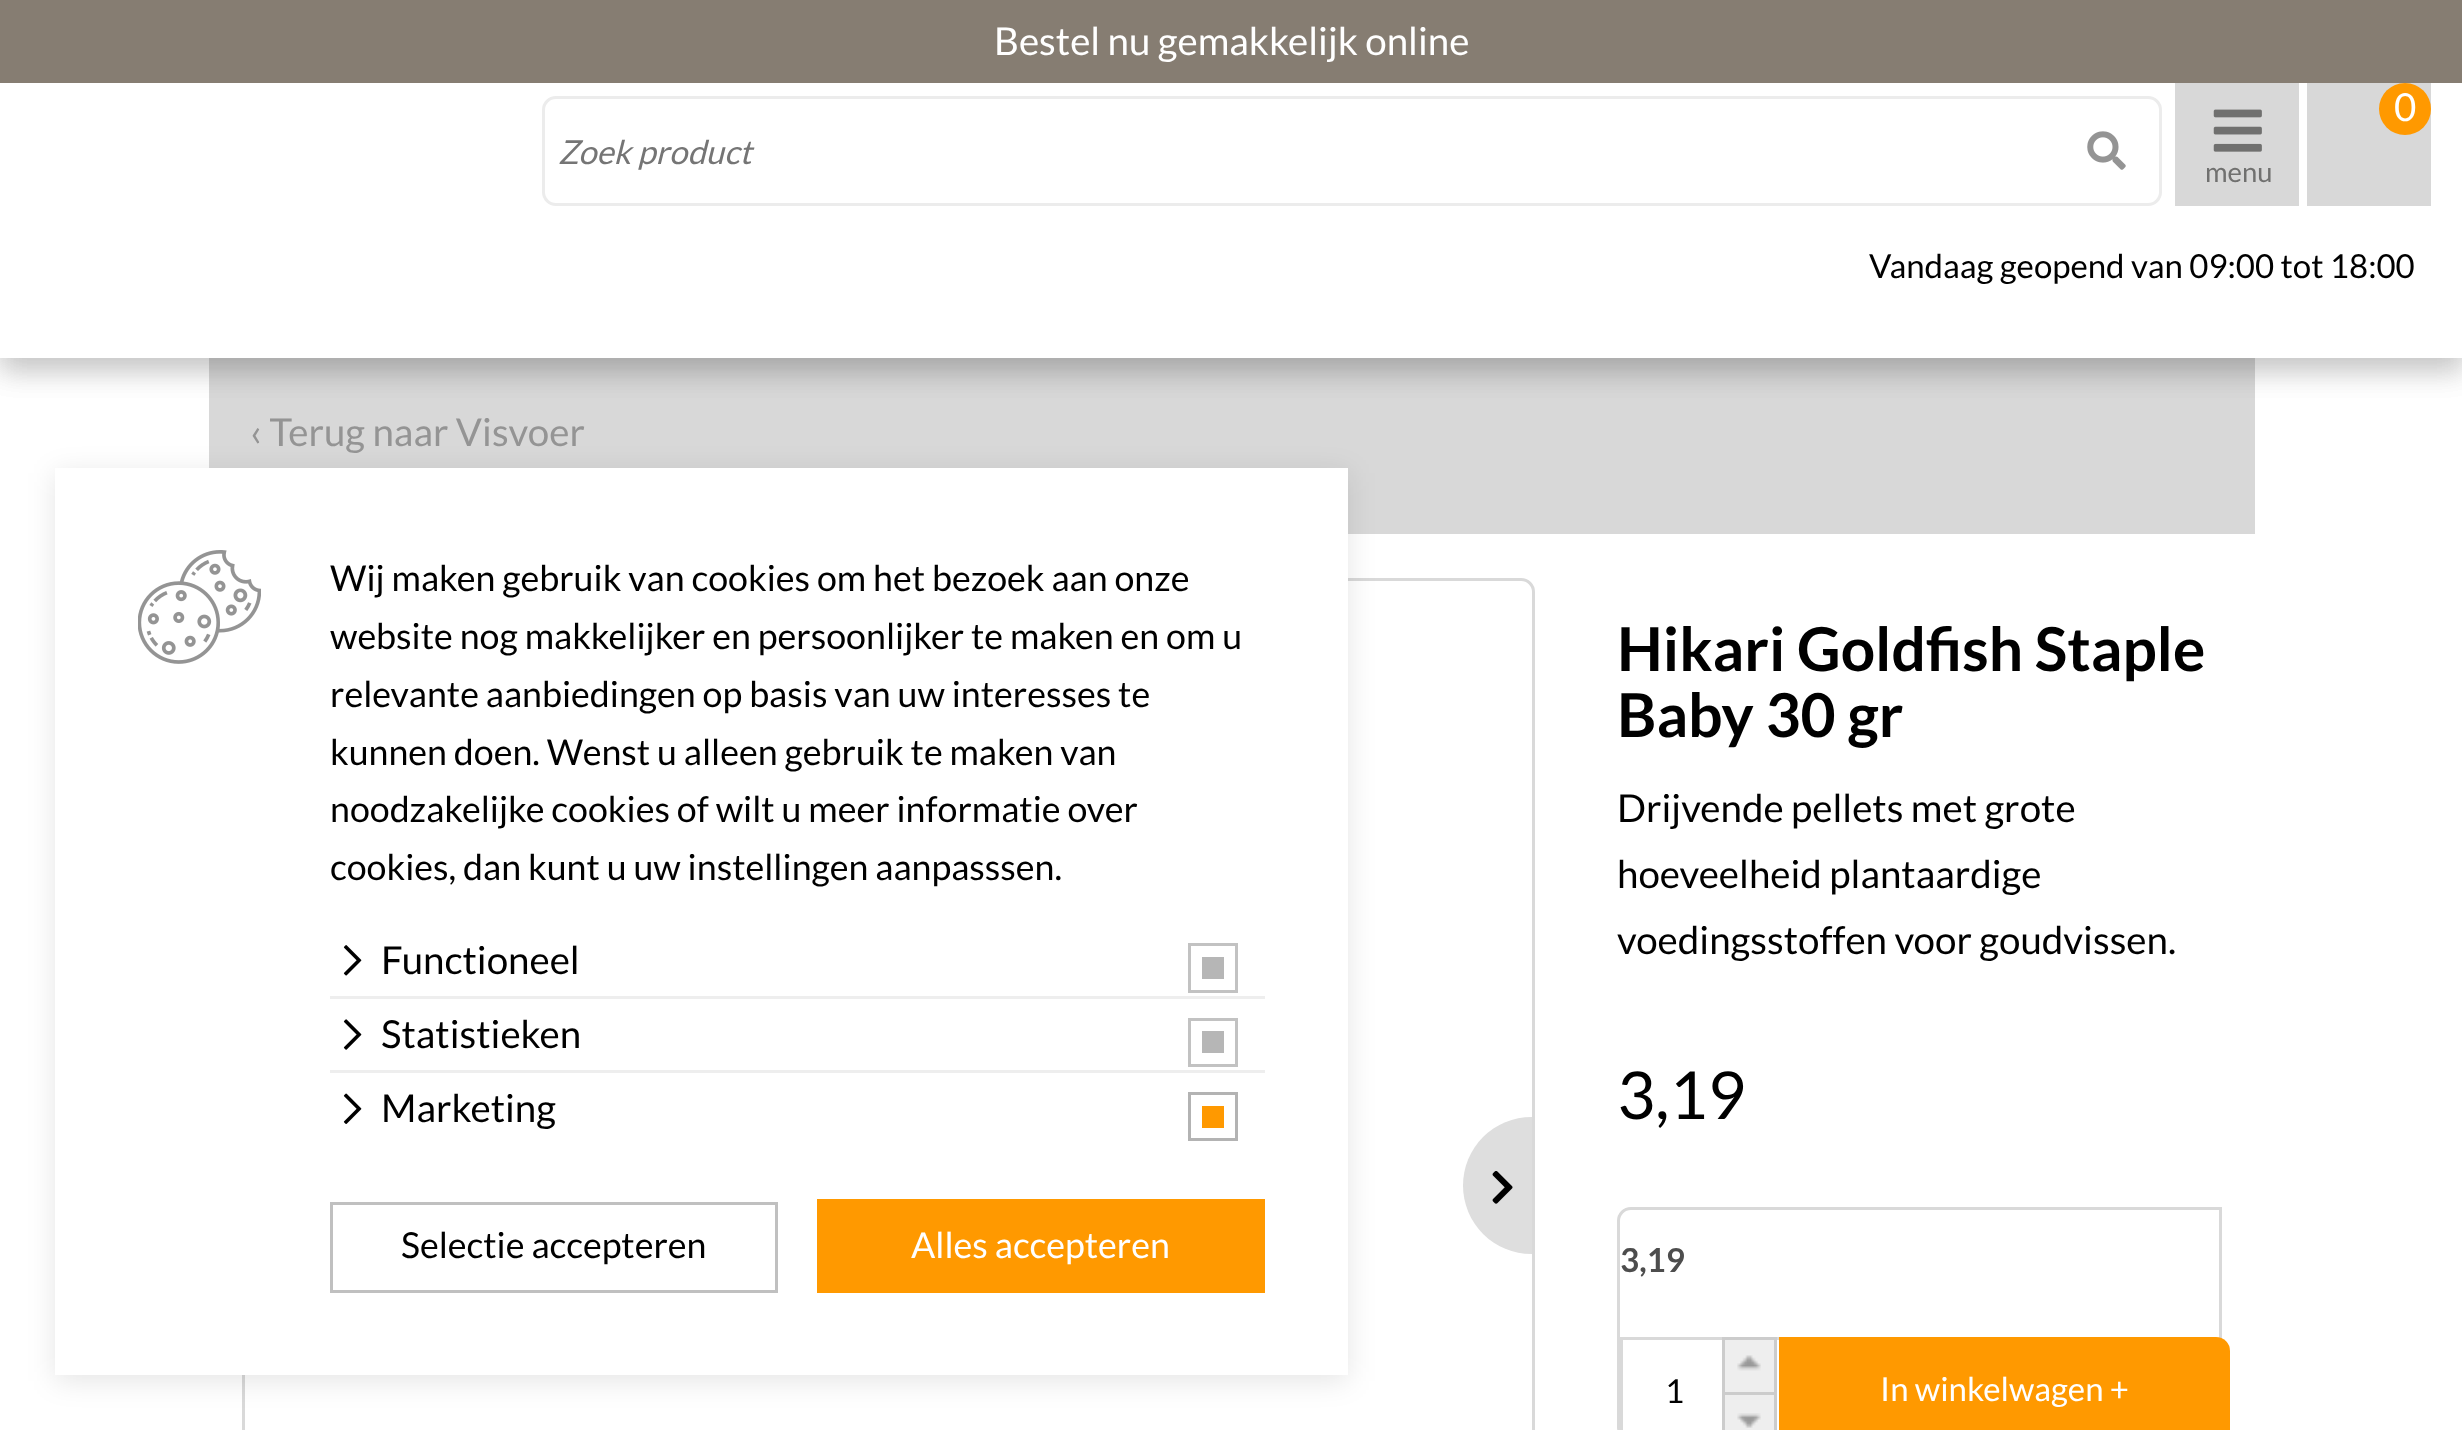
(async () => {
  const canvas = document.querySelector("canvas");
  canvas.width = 2462;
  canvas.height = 1430;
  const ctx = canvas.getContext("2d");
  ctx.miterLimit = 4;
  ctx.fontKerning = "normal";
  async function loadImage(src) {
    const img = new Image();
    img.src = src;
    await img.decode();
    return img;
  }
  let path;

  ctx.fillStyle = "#ffffff";
  ctx.fillRect(0, 0, 2462, 1430);
  ctx.fillStyle = "#d8d8d8";
  ctx.fillRect(209, 358, 2046, 176);
  ctx.fillStyle = "rgba(0, 0, 0, 0.12)";
  ctx.filter = "blur(14px)";
  ctx.beginPath();
  ctx.rect(0, 14, 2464, 357);
  ctx.fill();
  ctx.filter = "none";
  ctx.fillStyle = "#ffffff";
  ctx.fillRect(0, 83, 2462, 275);
  ctx.save();
  path = new Path2D("M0 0H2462V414H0ZM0 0H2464V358H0Z");
  ctx.clip(path, "evenodd");
  ctx.fillStyle = "rgba(0, 0, 0, 0.12)";
  ctx.filter = "blur(14px)";
  ctx.beginPath();
  ctx.rect(0, 14, 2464, 357);
  ctx.fill();
  ctx.filter = "none";
  ctx.restore();
  ctx.beginPath();
  ctx.roundRect(543.5, 97.5, 1617, 107, 12.5);
  ctx.strokeStyle = "#ececec";
  ctx.lineWidth = 3;
  ctx.stroke();
  ctx.drawImage(await loadImage("img/1.png"), 2087, 131, 39, 39);
  ctx.fillStyle = "#867d72";
  ctx.fillRect(0, 0, 2462, 83);
  ctx.fillStyle = "#d8d8d8";
  ctx.fillRect(2307, 83, 124, 123);
  ctx.fillStyle = "#ff9900";
  ctx.beginPath();
  ctx.arc(2405, 109, 26, 0, Math.PI * 2);
  ctx.fill();
  ctx.fillStyle = "#d8d8d8";
  ctx.fillRect(2175, 83, 124, 123);
  ctx.drawImage(await loadImage("img/2.png"), 2213, 109, 49, 43);
  ctx.beginPath();
  ctx.roundRect(243.5, 579.5, 1290, 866, 12.5);
  ctx.strokeStyle = "#d9d9d9";
  ctx.stroke();
  ctx.fillStyle = "#dedede";
  ctx.beginPath();
  ctx.roundRect(1463, 1117, 69, 137, [68.5, 0, 0, 68.5]);
  ctx.fill();
  ctx.drawImage(await loadImage("img/3.png"), 1492, 1171, 21, 33);
  path = new Path2D("M1631 1208.5H2220.5V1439.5H1631C1624 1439.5 1618.5 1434 1618.5 1427V1221C1618.5 1214 1624 1208.5 1631 1208.5Z");
  ctx.stroke(path);
  ctx.strokeRect(1621.5, 1338.5, 464, 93);
  ctx.fillStyle = "#eeeeee";
  ctx.fillRect(1725, 1340, 49, 52);
  ctx.drawImage(await loadImage("img/4.png"), 1737, 1355, 24, 16);
  for (const [x, y, w, h, color] of [
    [1722, 1337, 55, 3, "#cccccc"],
    [1774, 1337, 3, 55, "#cccccc"],
    [1722, 1337, 3, 55, "#cccccc"],
    [1725, 1395, 49, 35, "#eeeeee"],
  ]) {
    ctx.fillStyle = color;
    ctx.fillRect(x, y, w, h);
  }
  ctx.drawImage(await loadImage("img/5.png"), 1737, 1413, 24, 15);
  ctx.strokeStyle = "#cccccc";
  ctx.strokeRect(1723.5, 1393.5, 52, 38);
  ctx.fillStyle = "#ff9900";
  ctx.beginPath();
  ctx.roundRect(1779, 1337, 451, 93, [0, 14, 0, 0]);
  ctx.fill();
  ctx.fillStyle = "rgba(0, 0, 0, 0.1)";
  ctx.filter = "blur(14px)";
  ctx.beginPath();
  ctx.rect(55, 473, 1293, 908);
  ctx.fill();
  ctx.filter = "none";
  ctx.fillStyle = "#ffffff";
  ctx.fillRect(55, 468, 1293, 907);
  ctx.drawImage(await loadImage("img/6.png"), 138, 550, 123, 114);
  ctx.drawImage(await loadImage("img/7.png"), 343, 945, 19, 31);
  ctx.strokeStyle = "#c2c2c2";
  ctx.strokeRect(1189.5, 944.5, 47, 47);
  ctx.fillStyle = "#b6b6b6";
  ctx.fillRect(1202, 957, 22, 22);
  ctx.fillStyle = "#eeeeee";
  ctx.fillRect(330, 996, 935, 3);
  ctx.drawImage(await loadImage("img/8.png"), 343, 1019, 19, 31);
  ctx.strokeRect(1189.5, 1019.5, 47, 46);
  ctx.fillStyle = "#b6b6b6";
  ctx.fillRect(1202, 1031, 22, 22);
  ctx.fillStyle = "#eeeeee";
  ctx.fillRect(330, 1070, 935, 3);
  ctx.drawImage(await loadImage("img/9.png"), 343, 1093, 19, 31);
  ctx.strokeStyle = "#b3b3b3";
  ctx.strokeRect(1189.5, 1093.5, 47, 46);
  ctx.fillStyle = "#ff9900";
  ctx.fillRect(1202, 1106, 22, 22);
  ctx.strokeStyle = "#c0c0c0";
  ctx.strokeRect(331.5, 1203.5, 445, 88);
  ctx.fillRect(817, 1199, 448, 94);
  ctx.font = "italic 33px Lato";
  ctx.fillStyle = "#757575";
  ctx.fillText("Zoek product", 558, 164);
  ctx.font = "38.5px Lato";
  ctx.fillStyle = "#ffffff";
  ctx.fillText("Bestel nu gemakkelijk online", 994, 55);
  ctx.fillText("0", 2394, 121);
  ctx.font = "27.5px Lato";
  ctx.fillStyle = "#70706f";
  ctx.fillText("menu", 2205, 182);
  ctx.font = "33px Lato";
  ctx.fillStyle = "#000000";
  ctx.fillText("Vandaag geopend van 09:00 tot 18:00", 1869, 278);
  ctx.font = "38.5px Lato";
  ctx.fillStyle = "#949494";
  ctx.fillText("‹ Terug naar Visvoer", 250, 446);
  ctx.font = "bold 60.5px Lato";
  ctx.fillStyle = "#000000";
  ctx.fillText("Hikari Goldfish Staple", 1617, 671);
  ctx.fillText("Baby 30 gr", 1617, 737);
  ctx.font = "38.5px Lato";
  for (const [text, x, y] of [
    ["Drijvende pellets met grote", 1617, 822],
    ["hoeveelheid plantaardige", 1617, 888],
    ["voedingsstoffen voor goudvissen.", 1617, 954],
  ]) {
    ctx.fillText(text, x, y);
  }
  ctx.font = "66px Lato";
  ctx.fillText("3,19", 1617, 1119);
  ctx.font = "bold 33px Lato";
  ctx.fillStyle = "#4d4d4d";
  ctx.fillText("3,19", 1620, 1272);
  ctx.font = "33px Lato";
  ctx.fillStyle = "#000000";
  ctx.fillText("1", 1665, 1403);
  ctx.fillStyle = "#ffffff";
  ctx.fillText("In winkelwagen +", 1880, 1401);
  ctx.font = "35.75px Lato";
  ctx.fillStyle = "#000000";
  for (const [text, x, y] of [
    ["Wij maken gebruik van cookies om het bezoek aan onze", 330, 591],
    ["website nog makkelijker en persoonlijker te maken en om u", 330, 649],
    ["relevante aanbiedingen op basis van uw interesses te", 330, 707],
    ["kunnen doen. Wenst u alleen gebruik te maken van", 330, 765],
    ["noodzakelijke cookies of wilt u meer informatie over", 330, 822],
    ["cookies, dan kunt u uw instellingen aanpasssen.", 330, 880],
  ]) {
    ctx.fillText(text, x, y);
  }
  ctx.font = "38.5px Lato";
  for (const [text, x, y] of [
    ["Functioneel", 381, 974],
    ["Statistieken", 381, 1048],
    ["Marketing", 381, 1122],
  ]) {
    ctx.fillText(text, x, y);
  }
  ctx.font = "35.75px Lato";
  ctx.fillText("Selectie accepteren", 401, 1258);
  ctx.fillStyle = "#ffffff";
  ctx.fillText("Alles accepteren", 911, 1258);
})();
